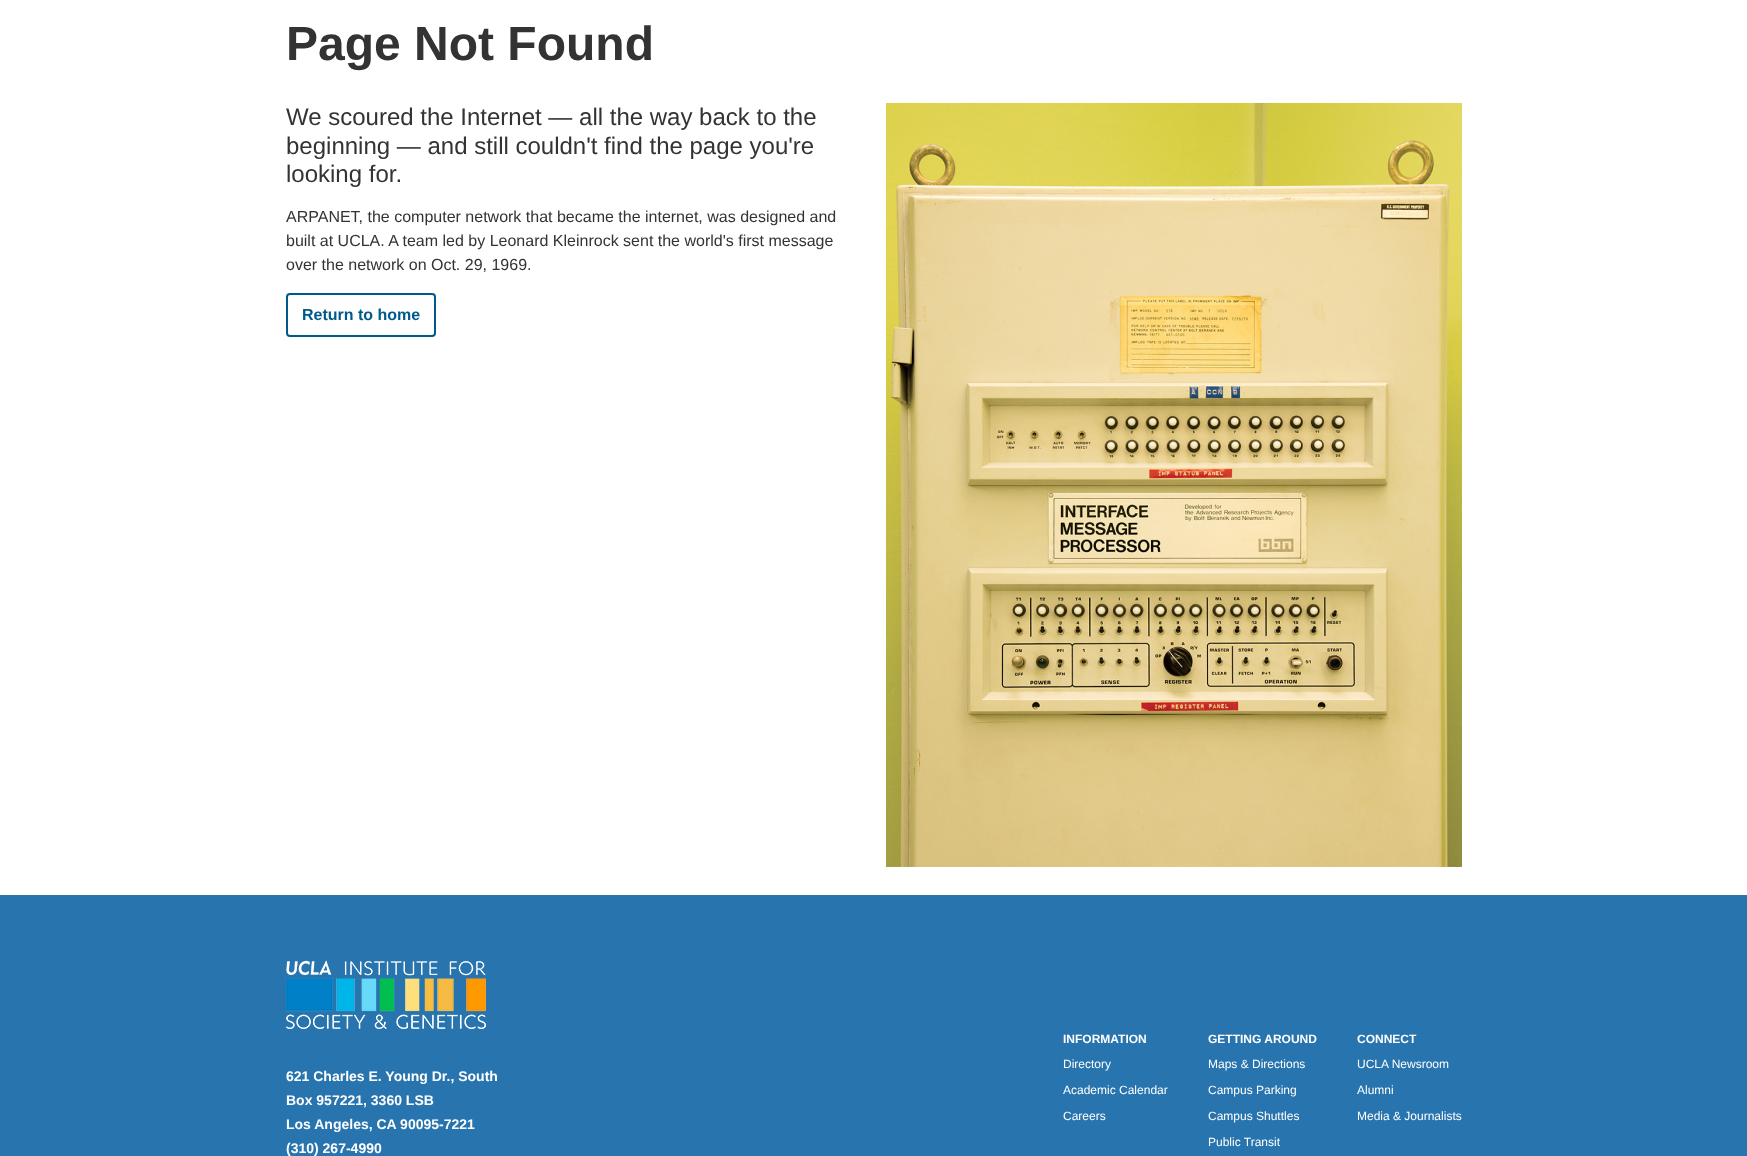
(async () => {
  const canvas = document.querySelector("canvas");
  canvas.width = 1747;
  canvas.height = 1156;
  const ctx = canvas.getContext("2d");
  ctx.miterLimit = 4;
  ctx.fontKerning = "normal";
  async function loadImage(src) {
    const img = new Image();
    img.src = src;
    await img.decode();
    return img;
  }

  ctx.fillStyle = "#ffffff";
  ctx.fillRect(0, 0, 1747, 1156);
  ctx.beginPath();
  ctx.roundRect(287, 294, 148, 42, 3);
  ctx.strokeStyle = "#00598c";
  ctx.lineWidth = 2;
  ctx.stroke();
  ctx.drawImage(await loadImage("img/1.png"), 886, 103, 576, 764);
  ctx.fillStyle = "#2774ae";
  ctx.fillRect(0, 895, 1747, 261);
  ctx.drawImage(await loadImage("img/2.png"), 286, 960, 200, 69);
  ctx.font = "bold 48px Liberation Sans";
  ctx.fillStyle = "#333333";
  ctx.fillText("Page Not Found", 286, 60);
  ctx.font = "24px Liberation Sans";
  for (const [text, x, y] of [
    ["We scoured the Internet — all the way back to the", 286, 125],
    ["beginning — and still couldn't find the page you're", 286, 154],
    ["looking for.", 286, 182],
  ]) {
    ctx.fillText(text, x, y);
  }
  ctx.font = "16px Liberation Sans";
  for (const [text, x, y] of [
    ["ARPANET, the computer network that became the internet, was designed and", 286, 222],
    ["built at UCLA. A team led by Leonard Kleinrock sent the world's first message", 286, 246],
    ["over the network on Oct. 29, 1969.", 286, 270],
  ]) {
    ctx.fillText(text, x, y);
  }
  ctx.font = "bold 16px Liberation Sans";
  ctx.fillStyle = "#00598c";
  ctx.fillText("Return to home", 302, 320);
  ctx.font = "bold 14px Liberation Sans";
  ctx.fillStyle = "#ffffff";
  for (const [text, x, y] of [
    ["621 Charles E. Young Dr., South", 286, 1081],
    ["Box 957221, 3360 LSB", 286, 1105],
    ["Los Angeles, CA 90095-7221", 286, 1129],
    ["(310) 267-4990", 286, 1153],
  ]) {
    ctx.fillText(text, x, y);
  }
  ctx.font = "bold 12px Liberation Sans";
  ctx.fillText("INFORMATION", 1063, 1043);
  ctx.font = "12px Liberation Sans";
  for (const [text, x, y] of [
    ["Directory", 1063, 1068],
    ["Academic Calendar", 1063, 1094],
    ["Careers", 1063, 1120],
  ]) {
    ctx.fillText(text, x, y);
  }
  ctx.font = "bold 12px Liberation Sans";
  ctx.fillText("GETTING AROUND", 1208, 1043);
  ctx.font = "12px Liberation Sans";
  for (const [text, x, y] of [
    ["Maps & Directions", 1208, 1068],
    ["Campus Parking", 1208, 1094],
    ["Campus Shuttles", 1208, 1120],
    ["Public Transit", 1208, 1146],
  ]) {
    ctx.fillText(text, x, y);
  }
  ctx.font = "bold 12px Liberation Sans";
  ctx.fillText("CONNECT", 1357, 1043);
  ctx.font = "12px Liberation Sans";
  for (const [text, x, y] of [
    ["UCLA Newsroom", 1357, 1068],
    ["Alumni", 1357, 1094],
    ["Media & Journalists", 1357, 1120],
  ]) {
    ctx.fillText(text, x, y);
  }
})();
